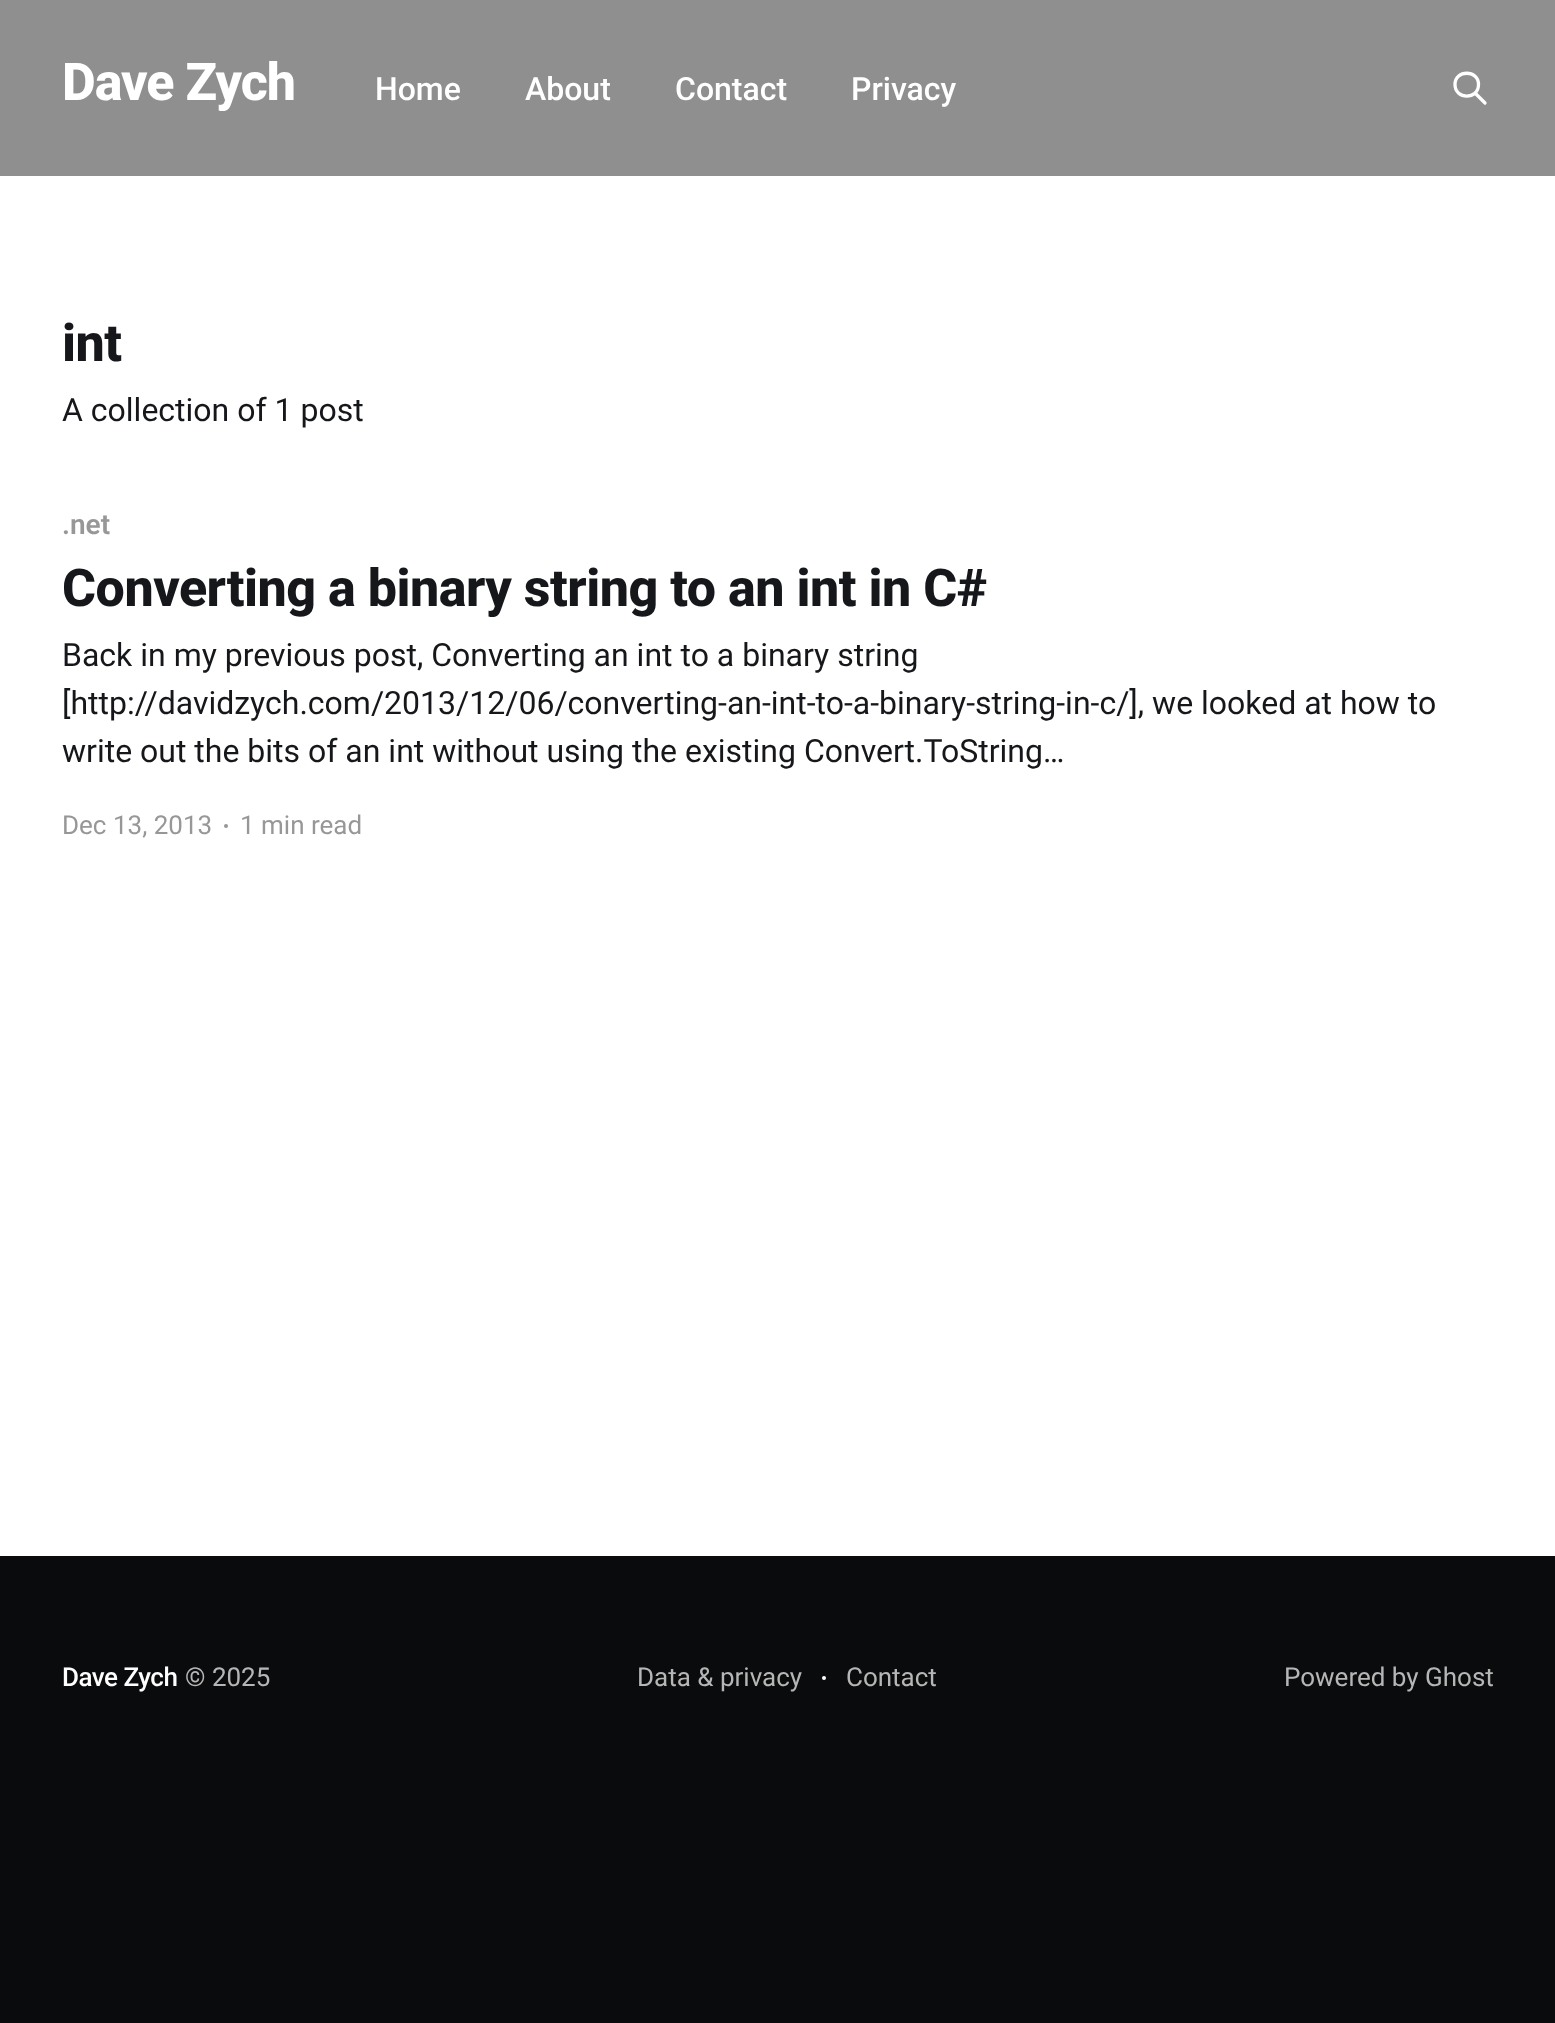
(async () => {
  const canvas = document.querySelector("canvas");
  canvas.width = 1555;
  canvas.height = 2023;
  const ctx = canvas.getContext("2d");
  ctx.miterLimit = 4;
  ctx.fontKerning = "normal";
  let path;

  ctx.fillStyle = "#ffffff";
  ctx.fillRect(0, 0, 1555, 2023);
  ctx.fillStyle = "#8f8f8f";
  ctx.fillRect(0, 0, 1555, 176);
  path = new Path2D("M1485 103L1475 93M1478.5 84.5C1478.5 100 1455 100 1455 84.5C1455 69.5 1478.5 69.5 1478.5 84.5Z");
  ctx.strokeStyle = "#ffffff";
  ctx.lineWidth = 3.3;
  ctx.lineCap = "round";
  ctx.lineJoin = "round";
  ctx.stroke(path);
  ctx.fillStyle = "#979797";
  ctx.beginPath();
  ctx.arc(226, 826, 2, 0, Math.PI * 2);
  ctx.fill();
  ctx.fillStyle = "#0a0b0c";
  ctx.fillRect(0, 1556, 1555, 467);
  ctx.fillStyle = "#ffffff";
  ctx.beginPath();
  ctx.arc(824, 1678, 2, 0, Math.PI * 2);
  ctx.fill();
  ctx.letterSpacing = "-1px";
  ctx.font = "800 52px Roboto";
  ctx.fillText("Dave Zych", 62, 100);
  ctx.letterSpacing = "0px";
  ctx.font = "500 32px Roboto";
  for (const [text, x, y] of [
    ["Home", 375, 100],
    ["About", 525, 100],
    ["Contact", 675, 100],
    ["Privacy", 851, 100],
  ]) {
    ctx.fillText(text, x, y);
  }
  ctx.letterSpacing = "-0.5px";
  ctx.font = "800 52px Roboto";
  ctx.fillStyle = "#15171a";
  ctx.fillText("int", 62, 361);
  ctx.letterSpacing = "0px";
  ctx.font = "32px Roboto";
  ctx.fillText("A collection of 1 post", 62, 421);
  ctx.font = "600 28px Roboto";
  ctx.fillStyle = "#979797";
  ctx.fillText(".net", 62, 534);
  ctx.letterSpacing = "-0.5px";
  ctx.font = "800 52px Roboto";
  ctx.fillStyle = "#15171a";
  ctx.fillText("Converting a binary string to an int in C#", 62, 606);
  ctx.letterSpacing = "0px";
  ctx.font = "32px Roboto";
  for (const [text, x, y] of [
    ["Back in my previous post, Converting an int to a binary string", 62, 666],
    ["[http://davidzych.com/2013/12/06/converting-an-int-to-a-binary-string-in-c/], we looked at how to", 62, 714],
    ["write out the bits of an int without using the existing Convert.ToString…", 62, 762],
  ]) {
    ctx.fillText(text, x, y);
  }
  ctx.font = "26px Roboto";
  ctx.fillStyle = "#979797";
  ctx.fillText("Dec 13, 2013", 62, 834);
  ctx.fillText("1 min read", 240, 834);
  ctx.letterSpacing = "-0.5px";
  ctx.font = "500 26px Roboto";
  ctx.fillStyle = "#ffffff";
  ctx.fillText("Dave Zych", 62, 1686);
  ctx.letterSpacing = "0px";
  ctx.font = "26px Roboto";
  ctx.fillStyle = "#b6b6b6";
  for (const [text, x, y] of [
    ["© 2025", 185, 1686],
    ["Data & privacy", 637, 1686],
    ["Contact", 846, 1686],
    ["Powered by Ghost", 1284, 1686],
  ]) {
    ctx.fillText(text, x, y);
  }
})();
